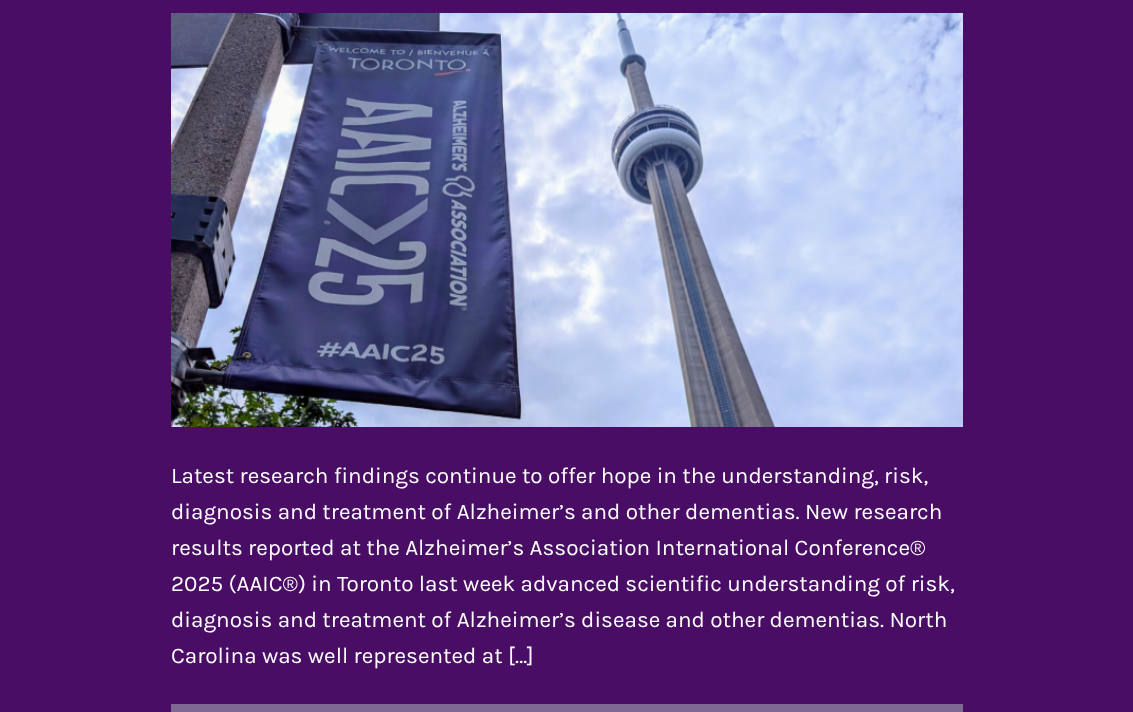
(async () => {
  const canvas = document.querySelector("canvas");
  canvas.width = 1133;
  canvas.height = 712;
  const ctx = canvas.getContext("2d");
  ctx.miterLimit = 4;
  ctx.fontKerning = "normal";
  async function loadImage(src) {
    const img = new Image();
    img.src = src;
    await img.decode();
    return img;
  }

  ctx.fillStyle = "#4a0d66";
  ctx.fillRect(0, 0, 1133, 712);
  ctx.drawImage(await loadImage("img/1.png"), 171, 13, 792, 414);
  ctx.fillStyle = "#7f6891";
  ctx.fillRect(171, 704, 792, 8);
  ctx.font = "22.5px Karla";
  ctx.fillStyle = "#ffffff";
  for (const [text, x, y] of [
    ["Latest research findings continue to offer hope in the understanding, risk,", 171, 483],
    ["diagnosis and treatment of Alzheimer’s and other dementias. New research", 171, 519],
    ["results reported at the Alzheimer’s Association International Conference®", 171, 555],
    ["2025 (AAIC®) in Toronto last week advanced scientific understanding of risk,", 171, 591],
    ["diagnosis and treatment of Alzheimer’s disease and other dementias. North", 171, 627],
    ["Carolina was well represented at […]", 171, 663],
  ]) {
    ctx.fillText(text, x, y);
  }
})();
